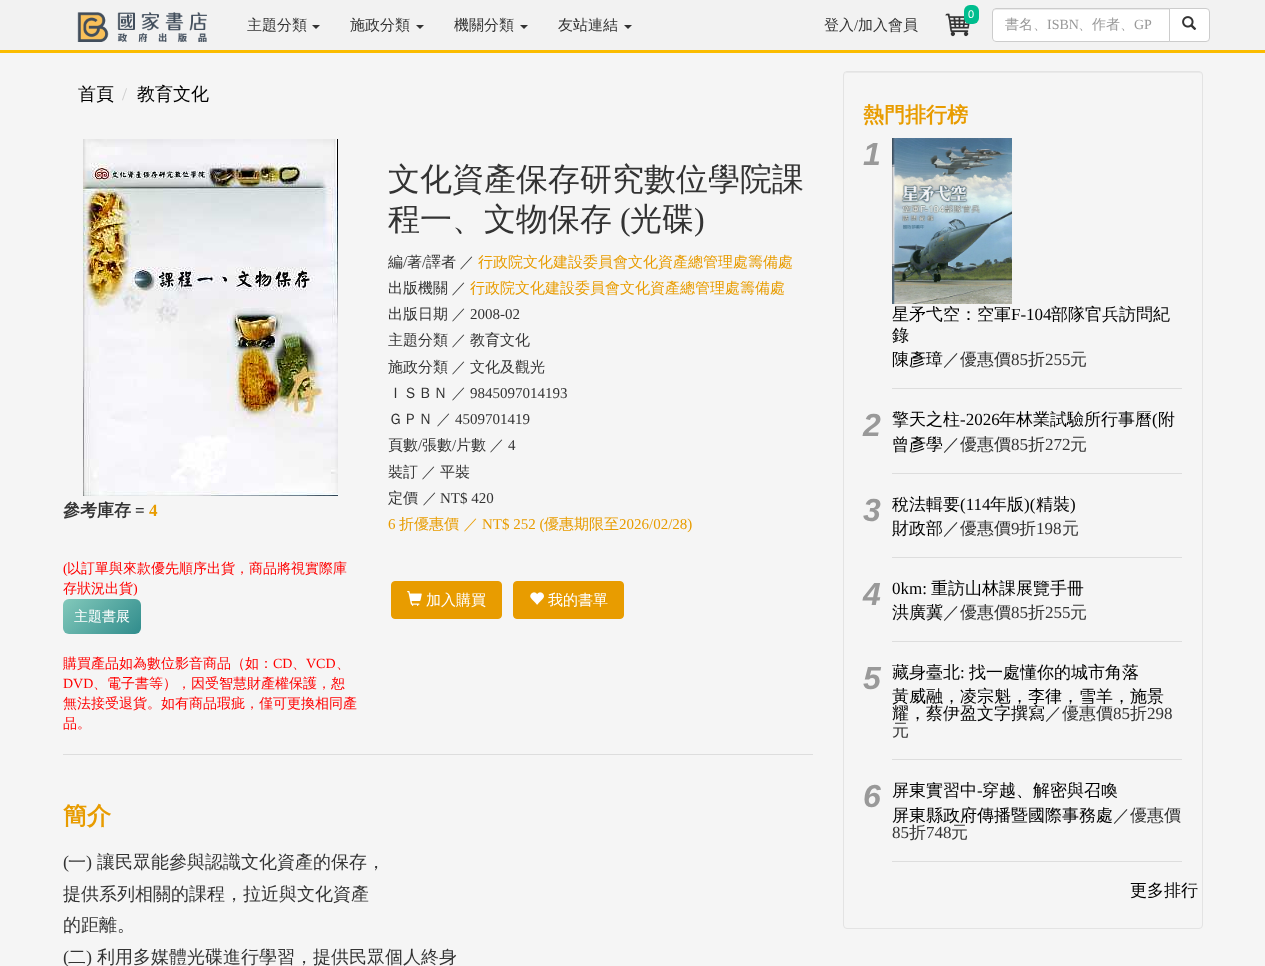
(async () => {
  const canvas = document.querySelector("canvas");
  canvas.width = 1265;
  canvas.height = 966;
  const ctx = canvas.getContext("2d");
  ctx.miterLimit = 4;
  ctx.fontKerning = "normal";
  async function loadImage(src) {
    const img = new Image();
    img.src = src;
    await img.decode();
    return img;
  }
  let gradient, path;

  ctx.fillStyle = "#f5f5f5";
  ctx.fillRect(0, 0, 1265, 966);
  ctx.fillStyle = "#f2f2f2";
  ctx.fillRect(0, 0, 1265, 50);
  ctx.fillStyle = "#fbbc00";
  ctx.fillRect(0, 50, 1265, 3);
  ctx.drawImage(await loadImage("img/1.png"), 77, 12, 130, 30);
  ctx.fillStyle = "#333333";
  path = new Path2D("M312 25H320L316 29Z");
  ctx.fill(path);
  path = new Path2D("M416 25H424L420 29Z");
  ctx.fill(path);
  path = new Path2D("M520 25H528L524 29Z");
  ctx.fill(path);
  path = new Path2D("M624 25H632L628 29Z");
  ctx.fill(path);
  ctx.drawImage(await loadImage("img/2.png"), 945, 13, 25, 24);
  ctx.fillStyle = "#00bd8e";
  ctx.beginPath();
  ctx.roundRect(964, 5, 15, 19, 6);
  ctx.fill();
  ctx.fillStyle = "#ffffff";
  ctx.beginPath();
  ctx.roundRect(992, 8, 178, 34, [4, 0, 0, 4]);
  ctx.fill();
  ctx.fillStyle = "#ececec";
  path = new Path2D("M996 10H1169V9H995C993 10 993 11 993 13C993 11 994 10 996 10Z");
  ctx.fill(path);
  ctx.beginPath();
  ctx.roundRect(992.5, 8.5, 177, 33, [3.5, 0, 0, 3.5]);
  ctx.strokeStyle = "#cccccc";
  ctx.stroke();
  ctx.fillStyle = "#ffffff";
  ctx.beginPath();
  ctx.roundRect(1169.5, 8.5, 40, 33, [0, 3.5, 3.5, 0]);
  ctx.fill();
  ctx.stroke();
  ctx.drawImage(await loadImage("img/3.png"), 1182, 16, 15, 14);
  ctx.drawImage(await loadImage("img/4.png"), 83, 139, 255, 357);
  gradient = ctx.createLinearGradient(74, 588, 130, 645);
  gradient.addColorStop(0, "#83c9bb");
  gradient.addColorStop(1, "#308c8c");
  ctx.fillStyle = gradient;
  ctx.beginPath();
  ctx.roundRect(63, 599, 78, 35, 6);
  ctx.fill();
  ctx.fillStyle = "#e89c00";
  ctx.beginPath();
  ctx.roundRect(391.5, 581.5, 110, 37, 3.5);
  ctx.fill();
  ctx.strokeStyle = "#e89c00";
  ctx.stroke();
  ctx.drawImage(await loadImage("img/5.png"), 407, 591, 15, 15);
  ctx.beginPath();
  ctx.roundRect(513.5, 581.5, 110, 37, 3.5);
  ctx.fill();
  ctx.stroke();
  ctx.drawImage(await loadImage("img/6.png"), 530, 592, 14, 13);
  ctx.fillStyle = "#dddddd";
  ctx.fillRect(63, 754, 750, 1);
  ctx.fillStyle = "#e9e9e9";
  path = new Path2D("M847 73H1199C1201 73 1202 74 1202 76C1202 74 1201 72 1199 72H847L845 73L844 76C844 74 845 73 847 73Z");
  ctx.fill(path);
  ctx.beginPath();
  ctx.roundRect(843.5, 71.5, 359, 857, 3.5);
  ctx.strokeStyle = "#e3e3e3";
  ctx.stroke();
  ctx.drawImage(await loadImage("img/7.png"), 892, 138, 120, 166);
  for (const [x, y, w, h, color] of [
    [892, 388, 290, 1, "#dddddd"],
    [892, 473, 290, 1, "#dddddd"],
    [892, 557, 290, 1, "#dddddd"],
    [892, 641, 290, 1, "#dddddd"],
    [892, 759, 290, 1, "#dddddd"],
    [892, 861, 290, 1, "#dddddd"],
  ]) {
    ctx.fillStyle = color;
    ctx.fillRect(x, y, w, h);
  }
  ctx.font = "500 15px WenQuanYi Zen Hei";
  ctx.fillStyle = "#333333";
  for (const [text, x, y] of [
    ["主題分類", 247, 30],
    ["施政分類", 350, 30],
    ["機關分類", 454, 30],
    ["友站連結", 558, 30],
  ]) {
    ctx.fillText(text, x, y);
  }
  ctx.font = "11px Liberation Sans";
  ctx.fillStyle = "#ffffff";
  ctx.fillText("0", 968, 18);
  ctx.font = "500 15px WenQuanYi Zen Hei";
  ctx.fillStyle = "#333333";
  ctx.fillText("登入", 824, 30);
  ctx.font = "15px Liberation Serif";
  ctx.fillText("/", 854, 30);
  ctx.font = "500 15px WenQuanYi Zen Hei";
  ctx.fillText("加入會員", 858, 30);
  ctx.font = "500 14px WenQuanYi Zen Hei";
  ctx.fillStyle = "#999999";
  ctx.fillText("書名、", 1005, 29);
  ctx.font = "14px Liberation Serif";
  ctx.fillText("ISBN", 1047, 29);
  ctx.font = "500 14px WenQuanYi Zen Hei";
  ctx.fillText("、作者、", 1078, 29);
  ctx.font = "14px Liberation Serif";
  ctx.fillText("GP", 1134, 29);
  ctx.font = "500 18px WenQuanYi Zen Hei";
  ctx.fillStyle = "#000000";
  ctx.fillText("首頁", 78, 100);
  ctx.font = "18px Liberation Serif";
  ctx.fillStyle = "#cccccc";
  ctx.fillText("/", 122, 100);
  ctx.font = "500 18px WenQuanYi Zen Hei";
  ctx.fillStyle = "#000000";
  ctx.fillText("教育文化", 137, 100);
  ctx.font = "bold 17px WenQuanYi Zen Hei";
  ctx.fillStyle = "#333333";
  ctx.fillText("參考庫存", 63, 516);
  ctx.font = "bold 17px Liberation Serif";
  ctx.fillText("=", 135, 516);
  ctx.fillStyle = "#e89c00";
  ctx.fillText("4", 149, 516);
  ctx.font = "14px Liberation Serif";
  ctx.fillStyle = "#ff0000";
  ctx.fillText("(", 63, 573);
  ctx.font = "500 14px WenQuanYi Zen Hei";
  ctx.fillText("以訂單與來款優先順序出貨，商品將視實際庫", 67, 573);
  ctx.fillText("存狀況出貨", 63, 593);
  ctx.font = "14px Liberation Serif";
  ctx.fillText(")", 133, 593);
  ctx.font = "500 14px WenQuanYi Zen Hei";
  ctx.fillStyle = "#ffffff";
  ctx.fillText("主題書展", 74, 621);
  ctx.fillStyle = "#ff0000";
  ctx.fillText("購買產品如為數位影音商品（如：", 63, 668);
  ctx.font = "14px Liberation Serif";
  ctx.fillText("CD", 273, 668);
  ctx.font = "500 14px WenQuanYi Zen Hei";
  ctx.fillText("、", 292, 668);
  ctx.font = "14px Liberation Serif";
  ctx.fillText("VCD", 306, 668);
  ctx.font = "500 14px WenQuanYi Zen Hei";
  ctx.fillText("、", 336, 668);
  ctx.font = "14px Liberation Serif";
  ctx.fillText("DVD", 63, 688);
  ctx.font = "500 14px WenQuanYi Zen Hei";
  for (const [text, x, y] of [
    ["、電子書等），因受智慧財產權保護，恕", 93, 688],
    ["無法接受退貨。如有商品瑕疵，僅可更換相同產", 63, 708],
    ["品。", 63, 728],
  ]) {
    ctx.fillText(text, x, y);
  }
  ctx.font = "500 32px WenQuanYi Zen Hei";
  ctx.fillStyle = "#333333";
  ctx.fillText("文化資產保存研究數位學院課", 388, 190);
  ctx.fillText("程一、文物保存", 388, 230);
  ctx.font = "32px Liberation Serif";
  ctx.fillText("(", 620, 230);
  ctx.font = "500 32px WenQuanYi Zen Hei";
  ctx.fillText("光碟", 630, 230);
  ctx.font = "32px Liberation Serif";
  ctx.fillText(")", 694, 230);
  ctx.font = "500 15px WenQuanYi Zen Hei";
  ctx.fillText("編", 388, 267);
  ctx.font = "15px Liberation Serif";
  ctx.fillText("/", 403, 267);
  ctx.font = "500 15px WenQuanYi Zen Hei";
  ctx.fillText("著", 407, 267);
  ctx.font = "15px Liberation Serif";
  ctx.fillText("/", 422, 267);
  ctx.wordSpacing = "-1px";
  ctx.font = "500 15px WenQuanYi Zen Hei";
  ctx.fillText("譯者 ／", 426, 267);
  ctx.wordSpacing = "0px";
  ctx.fillStyle = "#e89c00";
  ctx.fillText("行政院文化建設委員會文化資產總管理處籌備處", 478, 267);
  ctx.wordSpacing = "-1px";
  ctx.fillStyle = "#333333";
  ctx.fillText("出版機關 ／", 388, 293);
  ctx.wordSpacing = "0px";
  ctx.fillStyle = "#e89c00";
  ctx.fillText("行政院文化建設委員會文化資產總管理處籌備處", 470, 293);
  ctx.wordSpacing = "-1px";
  ctx.fillStyle = "#333333";
  ctx.fillText("出版日期 ／", 388, 319);
  ctx.wordSpacing = "0px";
  ctx.font = "15px Liberation Serif";
  ctx.fillText("2008-02", 470, 319);
  ctx.wordSpacing = "-1px";
  ctx.font = "500 15px WenQuanYi Zen Hei";
  ctx.fillText("主題分類 ／", 388, 345);
  ctx.wordSpacing = "0px";
  ctx.fillText("教育文化", 470, 345);
  ctx.wordSpacing = "-1px";
  ctx.fillText("施政分類 ／", 388, 372);
  ctx.wordSpacing = "0px";
  ctx.fillText("文化及觀光", 470, 372);
  ctx.wordSpacing = "-1px";
  ctx.fillText("ＩＳＢＮ ／", 388, 398);
  ctx.wordSpacing = "0px";
  ctx.font = "15px Liberation Serif";
  ctx.fillText("9845097014193", 470, 398);
  ctx.wordSpacing = "-1px";
  ctx.font = "500 15px WenQuanYi Zen Hei";
  ctx.fillText("ＧＰＮ ／", 388, 424);
  ctx.wordSpacing = "0px";
  ctx.font = "15px Liberation Serif";
  ctx.fillText("4509701419", 455, 424);
  ctx.font = "500 15px WenQuanYi Zen Hei";
  ctx.fillText("頁數", 388, 450);
  ctx.font = "15px Liberation Serif";
  ctx.fillText("/", 418, 450);
  ctx.font = "500 15px WenQuanYi Zen Hei";
  ctx.fillText("張數", 422, 450);
  ctx.font = "15px Liberation Serif";
  ctx.fillText("/", 452, 450);
  ctx.wordSpacing = "-1px";
  ctx.font = "500 15px WenQuanYi Zen Hei";
  ctx.fillText("片數 ／", 456, 450);
  ctx.wordSpacing = "0px";
  ctx.font = "15px Liberation Serif";
  ctx.fillText("4", 508, 450);
  ctx.wordSpacing = "-1px";
  ctx.font = "500 15px WenQuanYi Zen Hei";
  ctx.fillText("裝訂 ／", 388, 477);
  ctx.wordSpacing = "0px";
  ctx.fillText("平裝", 440, 477);
  ctx.fillText("定價 ／", 388, 503);
  ctx.font = "15px Liberation Serif";
  ctx.fillText("NT$ 420", 440, 503);
  ctx.fillStyle = "#e89c00";
  ctx.fillText("6", 388, 529);
  ctx.font = "500 15px WenQuanYi Zen Hei";
  ctx.fillText("折優惠價 ／", 399, 529);
  ctx.font = "15px Liberation Serif";
  ctx.fillText("NT$ 252 (", 482, 529);
  ctx.font = "500 15px WenQuanYi Zen Hei";
  ctx.fillText("優惠期限至", 544, 529);
  ctx.font = "15px Liberation Serif";
  ctx.fillText("2026/02/28)", 619, 529);
  ctx.font = "500 15px WenQuanYi Zen Hei";
  ctx.fillStyle = "#ffffff";
  ctx.fillText("加入購買", 426, 605);
  ctx.fillText("我的書單", 548, 605);
  ctx.font = "bold 24px WenQuanYi Zen Hei";
  ctx.fillStyle = "#e89c00";
  ctx.fillText("簡介", 63, 824);
  ctx.font = "18px Liberation Serif";
  ctx.fillStyle = "#333333";
  ctx.fillText("(", 63, 868);
  ctx.font = "500 18px WenQuanYi Zen Hei";
  ctx.fillText("一", 68, 868);
  ctx.font = "18px Liberation Serif";
  ctx.fillText(")", 86, 868);
  ctx.font = "500 18px WenQuanYi Zen Hei";
  for (const [text, x, y] of [
    ["讓民眾能參與認識文化資產的保存，", 97, 868],
    ["提供系列相關的課程，拉近與文化資產", 63, 900],
    ["的距離。", 63, 931],
  ]) {
    ctx.fillText(text, x, y);
  }
  ctx.font = "18px Liberation Serif";
  ctx.fillText("(", 63, 963);
  ctx.font = "500 18px WenQuanYi Zen Hei";
  ctx.fillText("二", 68, 963);
  ctx.font = "18px Liberation Serif";
  ctx.fillText(")", 86, 963);
  ctx.font = "500 18px WenQuanYi Zen Hei";
  ctx.fillText("利用多媒體光碟進行學習，提供民眾個人終身", 97, 963);
  ctx.font = "bold 21px WenQuanYi Zen Hei";
  ctx.fillStyle = "#e89c00";
  ctx.fillText("熱門排行榜", 863, 122);
  ctx.font = "italic bold 32px Liberation Sans";
  ctx.fillStyle = "#999999";
  ctx.fillText("1", 863, 165);
  ctx.font = "500 17px WenQuanYi Zen Hei";
  ctx.fillStyle = "#000000";
  ctx.fillText("星矛弋空：空軍", 892, 320);
  ctx.font = "17px Liberation Serif";
  ctx.fillText("F-104", 1011, 320);
  ctx.font = "500 17px WenQuanYi Zen Hei";
  for (const [text, x, y] of [
    ["部隊官兵訪問紀", 1051, 320],
    ["錄", 892, 341],
    ["陳彥璋", 892, 365],
  ]) {
    ctx.fillText(text, x, y);
  }
  ctx.fillStyle = "#333333";
  ctx.fillText("／優惠價", 943, 365);
  ctx.font = "17px Liberation Serif";
  ctx.fillText("85", 1011, 365);
  ctx.font = "500 17px WenQuanYi Zen Hei";
  ctx.fillText("折", 1028, 365);
  ctx.font = "17px Liberation Serif";
  ctx.fillText("255", 1045, 365);
  ctx.font = "500 17px WenQuanYi Zen Hei";
  ctx.fillText("元", 1070, 365);
  ctx.font = "italic bold 32px Liberation Sans";
  ctx.fillStyle = "#999999";
  ctx.fillText("2", 863, 436);
  ctx.font = "500 17px WenQuanYi Zen Hei";
  ctx.fillStyle = "#000000";
  ctx.fillText("擎天之柱", 892, 425);
  ctx.font = "17px Liberation Serif";
  ctx.fillText("-2026", 960, 425);
  ctx.font = "500 17px WenQuanYi Zen Hei";
  ctx.fillText("年林業試驗所行事曆", 999, 425);
  ctx.font = "17px Liberation Serif";
  ctx.fillText("(", 1152, 425);
  ctx.font = "500 17px WenQuanYi Zen Hei";
  ctx.fillText("附", 1158, 425);
  ctx.fillText("曾彥學", 892, 450);
  ctx.fillStyle = "#333333";
  ctx.fillText("／優惠價", 943, 450);
  ctx.font = "17px Liberation Serif";
  ctx.fillText("85", 1011, 450);
  ctx.font = "500 17px WenQuanYi Zen Hei";
  ctx.fillText("折", 1028, 450);
  ctx.font = "17px Liberation Serif";
  ctx.fillText("272", 1045, 450);
  ctx.font = "500 17px WenQuanYi Zen Hei";
  ctx.fillText("元", 1070, 450);
  ctx.font = "italic bold 32px Liberation Sans";
  ctx.fillStyle = "#999999";
  ctx.fillText("3", 863, 521);
  ctx.font = "500 17px WenQuanYi Zen Hei";
  ctx.fillStyle = "#000000";
  ctx.fillText("稅法輯要", 892, 510);
  ctx.font = "17px Liberation Serif";
  ctx.fillText("(114", 960, 510);
  ctx.font = "500 17px WenQuanYi Zen Hei";
  ctx.fillText("年版", 990, 510);
  ctx.font = "17px Liberation Serif";
  ctx.fillText(")(", 1024, 510);
  ctx.font = "500 17px WenQuanYi Zen Hei";
  ctx.fillText("精裝", 1036, 510);
  ctx.font = "17px Liberation Serif";
  ctx.fillText(")", 1070, 510);
  ctx.font = "500 17px WenQuanYi Zen Hei";
  ctx.fillText("財政部", 892, 534);
  ctx.fillStyle = "#333333";
  ctx.fillText("／優惠價", 943, 534);
  ctx.font = "17px Liberation Serif";
  ctx.fillText("9", 1011, 534);
  ctx.font = "500 17px WenQuanYi Zen Hei";
  ctx.fillText("折", 1019, 534);
  ctx.font = "17px Liberation Serif";
  ctx.fillText("198", 1036, 534);
  ctx.font = "500 17px WenQuanYi Zen Hei";
  ctx.fillText("元", 1062, 534);
  ctx.font = "italic bold 32px Liberation Sans";
  ctx.fillStyle = "#999999";
  ctx.fillText("4", 863, 605);
  ctx.font = "17px Liberation Serif";
  ctx.fillStyle = "#000000";
  ctx.fillText("0km:", 892, 594);
  ctx.font = "500 17px WenQuanYi Zen Hei";
  ctx.fillText("重訪山林課展覽手冊", 931, 594);
  ctx.fillText("洪廣冀", 892, 618);
  ctx.fillStyle = "#333333";
  ctx.fillText("／優惠價", 943, 618);
  ctx.font = "17px Liberation Serif";
  ctx.fillText("85", 1011, 618);
  ctx.font = "500 17px WenQuanYi Zen Hei";
  ctx.fillText("折", 1028, 618);
  ctx.font = "17px Liberation Serif";
  ctx.fillText("255", 1045, 618);
  ctx.font = "500 17px WenQuanYi Zen Hei";
  ctx.fillText("元", 1070, 618);
  ctx.font = "italic bold 32px Liberation Sans";
  ctx.fillStyle = "#999999";
  ctx.fillText("5", 863, 689);
  ctx.font = "500 17px WenQuanYi Zen Hei";
  ctx.fillStyle = "#000000";
  ctx.fillText("藏身臺北", 892, 678);
  ctx.font = "17px Liberation Serif";
  ctx.fillText(":", 960, 678);
  ctx.font = "500 17px WenQuanYi Zen Hei";
  for (const [text, x, y] of [
    ["找一處懂你的城市角落", 969, 678],
    ["黃威融，凌宗魁，李律，雪羊，施景", 892, 702],
    ["耀，蔡伊盈文字撰寫", 892, 719],
  ]) {
    ctx.fillText(text, x, y);
  }
  ctx.fillStyle = "#333333";
  ctx.fillText("／優惠價", 1045, 719);
  ctx.font = "17px Liberation Serif";
  ctx.fillText("85", 1113, 719);
  ctx.font = "500 17px WenQuanYi Zen Hei";
  ctx.fillText("折", 1130, 719);
  ctx.font = "17px Liberation Serif";
  ctx.fillText("298", 1147, 719);
  ctx.font = "500 17px WenQuanYi Zen Hei";
  ctx.fillText("元", 892, 736);
  ctx.font = "italic bold 32px Liberation Sans";
  ctx.fillStyle = "#999999";
  ctx.fillText("6", 863, 807);
  ctx.font = "500 17px WenQuanYi Zen Hei";
  ctx.fillStyle = "#000000";
  ctx.fillText("屏東實習中", 892, 796);
  ctx.font = "17px Liberation Serif";
  ctx.fillText("-", 977, 796);
  ctx.font = "500 17px WenQuanYi Zen Hei";
  ctx.fillText("穿越、解密與召喚", 982, 796);
  ctx.fillText("屏東縣政府傳播暨國際事務處", 892, 821);
  ctx.fillStyle = "#333333";
  ctx.fillText("／優惠價", 1113, 821);
  ctx.font = "17px Liberation Serif";
  ctx.fillText("85", 892, 838);
  ctx.font = "500 17px WenQuanYi Zen Hei";
  ctx.fillText("折", 909, 838);
  ctx.font = "17px Liberation Serif";
  ctx.fillText("748", 926, 838);
  ctx.font = "500 17px WenQuanYi Zen Hei";
  ctx.fillText("元", 951, 838);
  ctx.fillStyle = "#000000";
  ctx.fillText("更多排行", 1130, 896);
})();
